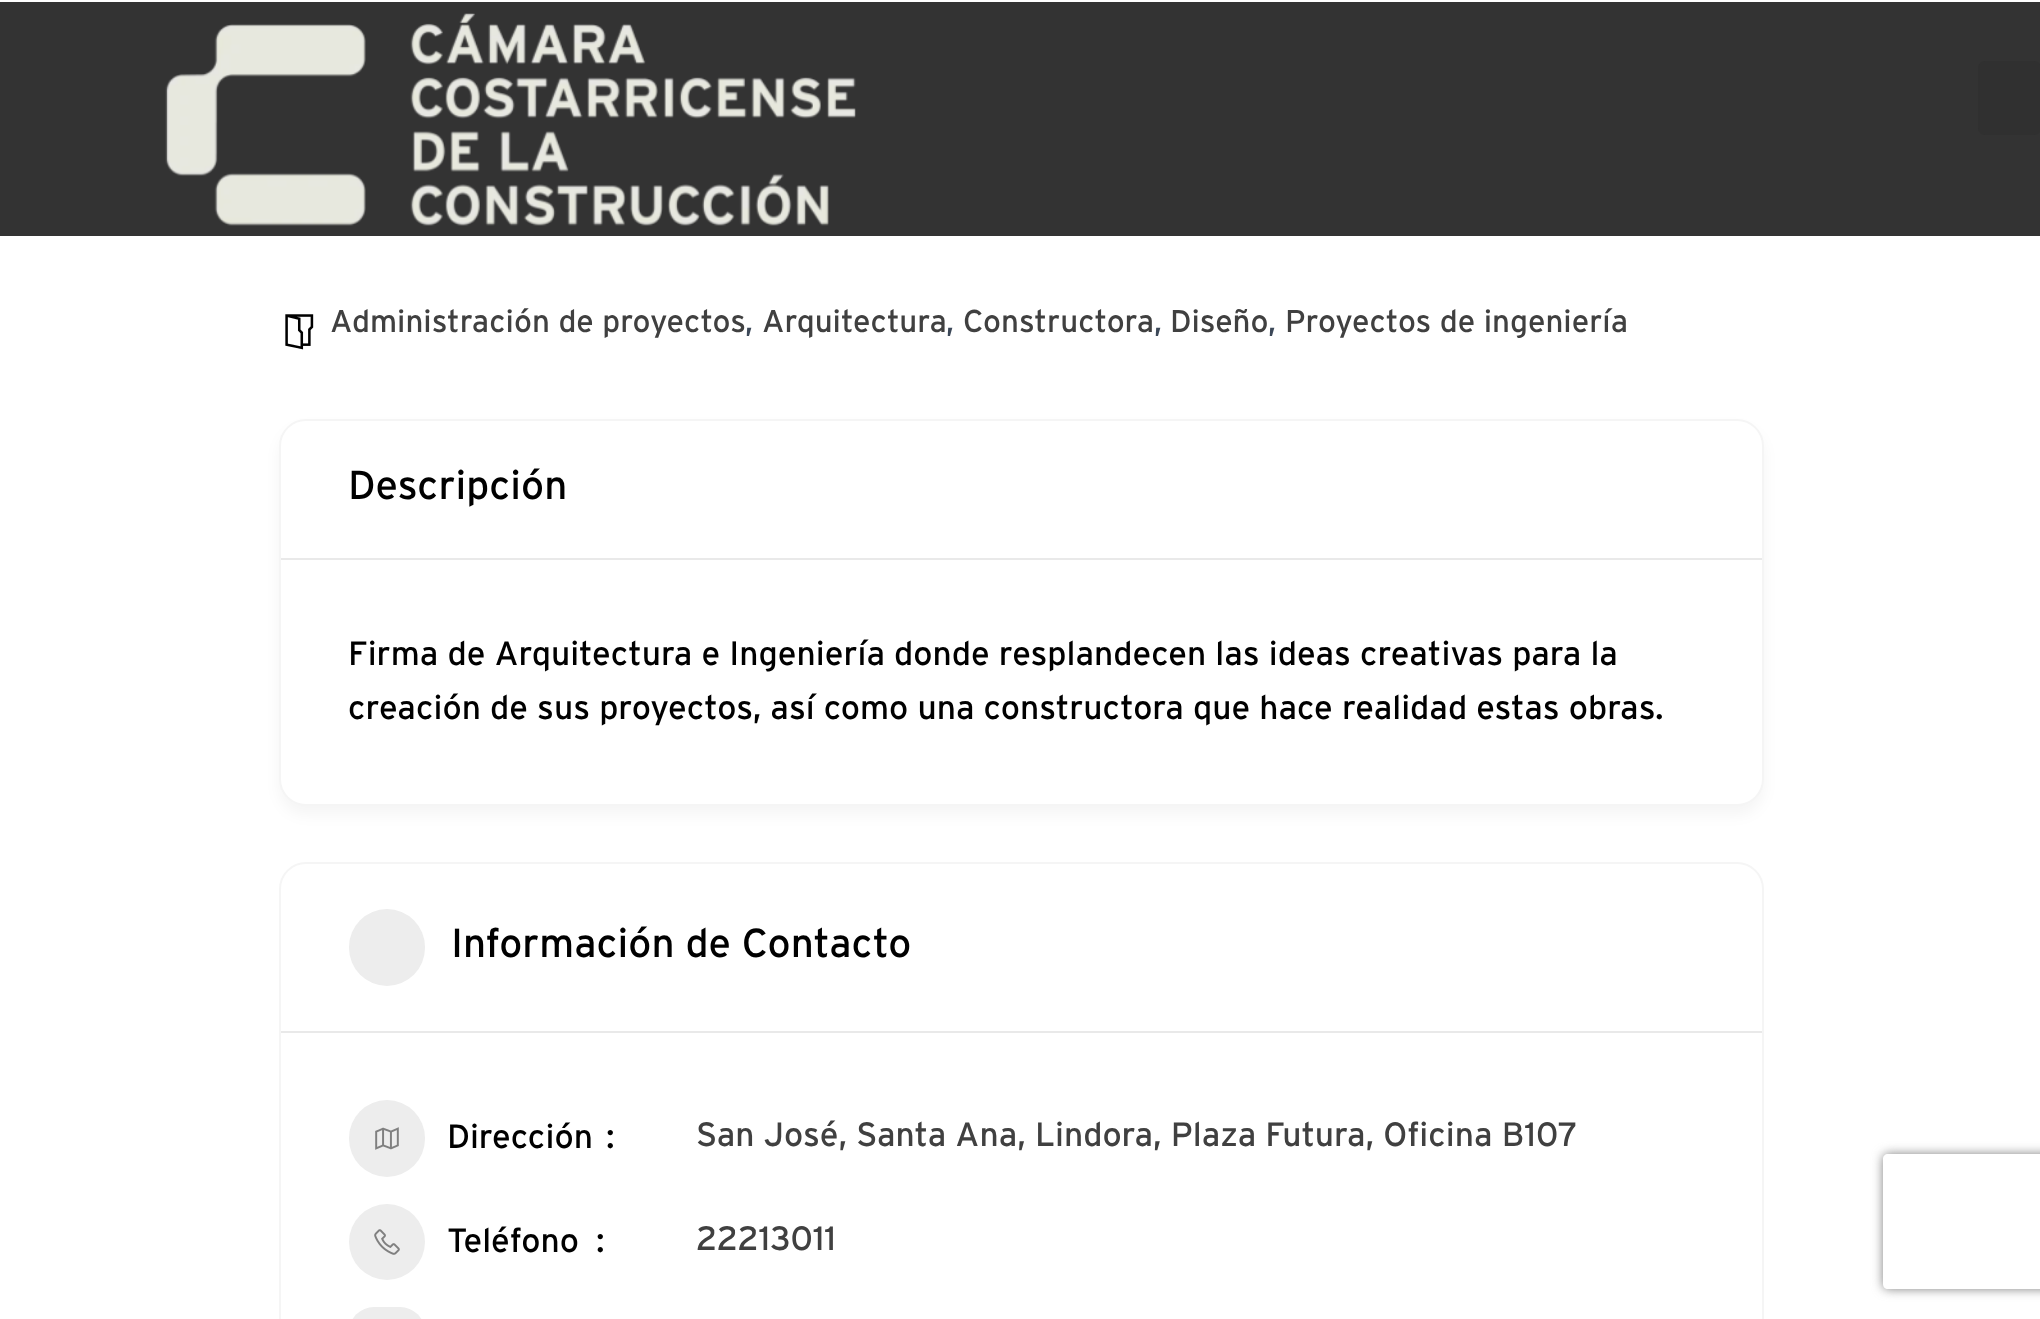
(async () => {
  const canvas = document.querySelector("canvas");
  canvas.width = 2040;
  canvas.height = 1319;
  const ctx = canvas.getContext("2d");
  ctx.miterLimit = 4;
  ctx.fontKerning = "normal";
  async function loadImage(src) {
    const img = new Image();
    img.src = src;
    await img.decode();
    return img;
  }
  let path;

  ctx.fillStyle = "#ffffff";
  ctx.fillRect(0, 0, 2040, 1319);
  ctx.fillStyle = "rgba(0, 0, 0, 0.8)";
  ctx.fillRect(0, 2, 2040, 234);
  ctx.drawImage(await loadImage("img/1.png"), 165, 13, 691, 213);
  ctx.fillStyle = "#303030";
  ctx.beginPath();
  ctx.roundRect(1978, 61, 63, 74, 7);
  ctx.fill();
  ctx.drawImage(await loadImage("img/2.png"), 285, 314, 29, 36);
  ctx.fillStyle = "rgba(0, 0, 0, 0.04)";
  ctx.filter = "blur(7px)";
  ctx.beginPath();
  ctx.roundRect(279, 428, 1485, 387, 27);
  ctx.fill();
  ctx.filter = "none";
  ctx.fillStyle = "#ffffff";
  ctx.beginPath();
  ctx.roundRect(280, 420, 1483, 385, 26);
  ctx.fill();
  ctx.strokeStyle = "#f5f5f5";
  ctx.lineWidth = 2;
  ctx.stroke();
  ctx.fillStyle = "#e9e9e9";
  ctx.fillRect(281, 558, 1481, 2);
  ctx.beginPath();
  ctx.roundRect(280, 863, 1483, 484, 26);
  ctx.stroke();
  ctx.fillRect(281, 1031, 1481, 2);
  ctx.fillStyle = "#ededed";
  ctx.beginPath();
  ctx.roundRect(349, 909, 76, 77, 38);
  ctx.fill();
  ctx.beginPath();
  ctx.roundRect(349, 1100, 76, 77, 38);
  ctx.fill();
  ctx.drawImage(await loadImage("img/3.png"), 375, 1127, 24, 23);
  ctx.beginPath();
  ctx.arc(387, 1242, 38, 0, Math.PI * 2);
  ctx.fill();
  ctx.drawImage(await loadImage("img/4.png"), 374, 1229, 26, 26);
  ctx.beginPath();
  ctx.roundRect(349, 1307, 76, 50, 38);
  ctx.fill();
  ctx.save();
  path = new Path2D("M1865 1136H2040V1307H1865ZM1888 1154H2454C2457 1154 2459 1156 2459 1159V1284C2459 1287 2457 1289 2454 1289H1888C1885 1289 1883 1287 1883 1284V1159C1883 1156 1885 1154 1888 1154Z");
  ctx.clip(path, "evenodd");
  ctx.fillStyle = "#808080";
  ctx.filter = "blur(5.5px)";
  ctx.beginPath();
  ctx.roundRect(1883, 1154, 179, 135, 5);
  ctx.fill();
  ctx.filter = "none";
  ctx.restore();
  ctx.font = "31.5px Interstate";
  ctx.fillStyle = "#404040";
  ctx.fillText("Administración de proyectos", 330, 332);
  ctx.fillStyle = "#3c4858";
  ctx.fillText(",", 745, 332);
  ctx.fillStyle = "#404040";
  ctx.fillText("Arquitectura", 762, 332);
  ctx.fillStyle = "#3c4858";
  ctx.fillText(",", 946, 332);
  ctx.fillStyle = "#404040";
  ctx.fillText("Constructora", 963, 332);
  ctx.fillStyle = "#3c4858";
  ctx.fillText(",", 1154, 332);
  ctx.fillStyle = "#404040";
  ctx.fillText("Diseño", 1170, 332);
  ctx.fillStyle = "#3c4858";
  ctx.fillText(",", 1268, 332);
  ctx.fillStyle = "#404040";
  ctx.fillText("Proyectos de ingeniería", 1285, 332);
  ctx.font = "40.5px Interstate";
  ctx.fillStyle = "#000000";
  ctx.fillText("Descripción", 348, 499);
  ctx.font = "33.75px Interstate";
  ctx.fillText("Firma de Arquitectura e Ingeniería donde resplandecen las ideas creativas para la", 348, 665);
  ctx.fillText("creación de sus proyectos, así como una constructora que hace realidad estas obras.", 348, 719);
  ctx.font = "40.5px Interstate";
  ctx.fillText("Información de Contacto", 451, 957);
  ctx.font = "33.75px Interstate";
  ctx.fillText("Dirección", 447, 1148);
  ctx.fillText(":", 606, 1148);
  ctx.fillStyle = "#404040";
  ctx.fillText("San José, Santa Ana, Lindora, Plaza Futura, Oficina B107", 696, 1146);
  ctx.fillStyle = "#000000";
  ctx.fillText("Teléfono", 447, 1252);
  ctx.fillText(":", 596, 1252);
  ctx.fillStyle = "#404040";
  ctx.fillText("22213011", 696, 1250);
})();
